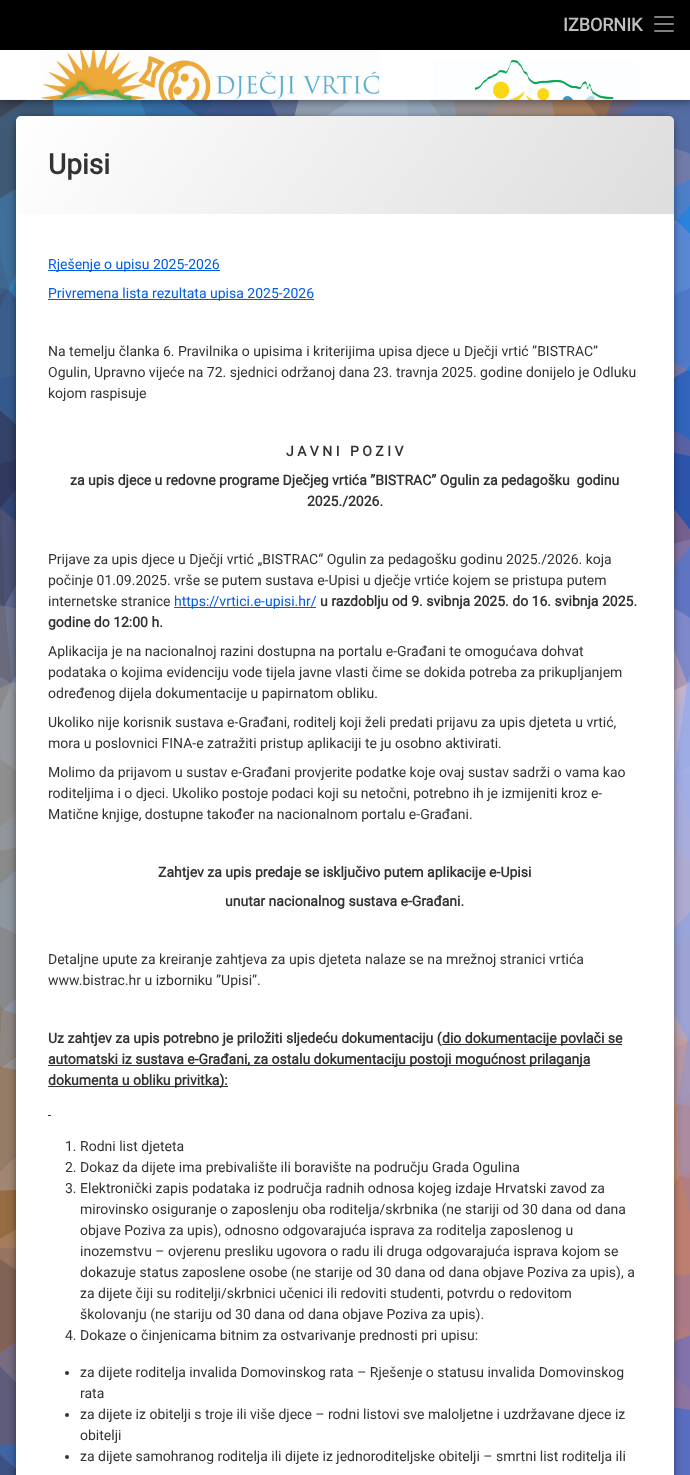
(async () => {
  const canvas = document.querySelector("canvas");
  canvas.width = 690;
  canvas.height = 1475;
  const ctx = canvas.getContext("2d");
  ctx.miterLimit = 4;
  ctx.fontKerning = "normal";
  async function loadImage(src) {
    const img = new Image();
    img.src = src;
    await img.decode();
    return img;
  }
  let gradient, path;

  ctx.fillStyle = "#ffffff";
  ctx.fillRect(0, 0, 690, 1475);
  ctx.drawImage(await loadImage("img/2.png"), 0, 99, 690, 1376);
  ctx.fillStyle = "rgba(0, 0, 0, 0.3)";
  ctx.filter = "blur(3.5px)";
  ctx.beginPath();
  ctx.rect(2, 52, 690, 50);
  ctx.fill();
  ctx.filter = "none";
  ctx.fillStyle = "rgba(0, 0, 0, 0.25)";
  ctx.filter = "blur(2.5px)";
  ctx.beginPath();
  ctx.roundRect(16, 116, 658, 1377, 10);
  ctx.fill();
  ctx.filter = "none";
  ctx.filter = "blur(5px)";
  ctx.beginPath();
  ctx.roundRect(16, 121, 658, 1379, 10);
  ctx.fill();
  ctx.filter = "none";
  ctx.fillStyle = "#ffffff";
  path = new Path2D("M26 116H664C669.5 116 674 120.5 674 126V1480C674 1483 672 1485 669 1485H21C18 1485 16 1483 16 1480V126C16 120.5 20.5 116 26 116Z");
  ctx.fill(path);
  gradient = ctx.createLinearGradient(101, -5.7, 589, 336);
  gradient.addColorStop(0, "#ffffff");
  gradient.addColorStop(1, "#dddddd");
  ctx.fillStyle = gradient;
  ctx.beginPath();
  ctx.roundRect(16, 116, 658, 98, [5, 5, 0, 0]);
  ctx.fill();
  ctx.fillStyle = "rgba(0, 0, 0, 0.2)";
  ctx.filter = "blur(7.5px)";
  ctx.beginPath();
  ctx.rect(0, 50, 690, 50);
  ctx.fill();
  ctx.filter = "none";
  ctx.fillStyle = "#000000";
  ctx.fillRect(0, 0, 690, 50);
  ctx.fillStyle = "#808080";
  ctx.beginPath();
  ctx.roundRect(654, 16, 20, 2, 1);
  ctx.fill();
  ctx.beginPath();
  ctx.roundRect(654, 23, 20, 2, 1);
  ctx.fill();
  ctx.beginPath();
  ctx.roundRect(654, 30, 20, 2, 1);
  ctx.fill();
  ctx.drawImage(await loadImage("img/1.png"), 0, 50, 690, 50);
  for (const [x, y, w, h, color] of [
    [48, 270, 172, 1, "#005ce4"],
    [48, 299, 266, 1, "#005ce4"],
    [174, 607, 142, 1, "#005ce4"],
    [442, 1044, 180, 1, "#333333"],
    [48, 1065, 542, 1, "#333333"],
    [48, 1086, 180, 1, "#333333"],
    [48, 1115, 3, 1, "#333333"],
  ]) {
    ctx.fillStyle = color;
    ctx.fillRect(x, y, w, h);
  }
  ctx.beginPath();
  ctx.arc(67, 1373, 2, 0, Math.PI * 2);
  ctx.fill();
  ctx.beginPath();
  ctx.arc(67, 1415, 2, 0, Math.PI * 2);
  ctx.fill();
  ctx.beginPath();
  ctx.arc(67, 1457, 2, 0, Math.PI * 2);
  ctx.fill();
  ctx.font = "bold 18px Roboto";
  ctx.fillStyle = "#bfbfbf";
  ctx.fillText("IZBORNIK", 563, 31);
  ctx.font = "bold 28px Roboto";
  ctx.fillStyle = "#333333";
  ctx.fillText("Upisi", 48, 174);
  ctx.font = "14px Roboto";
  ctx.fillStyle = "#005ce4";
  ctx.fillText("Rješenje o upisu 2025-2026", 48, 269);
  ctx.fillText("Privremena lista rezultata upisa 2025-2026", 48, 298);
  ctx.fillStyle = "#333333";
  for (const [text, x, y] of [
    ["Na temelju članka 6. Pravilnika o upisima i kriterijima upisa djece u Dječji vrtić ”BISTRAC”", 48, 356],
    ["Ogulin, Upravno vijeće na 72. sjednici održanoj dana 23. travnja 2025. godine donijelo je Odluku", 48, 377],
    ["kojom raspisuje", 48, 398],
  ]) {
    ctx.fillText(text, x, y);
  }
  ctx.font = "bold 14px Roboto";
  for (const [text, x, y] of [
    ["J A V N I   P O Z I V", 286, 456],
    ["za upis djece u redovne programe Dječjeg vrtića ”BISTRAC” Ogulin za pedagošku  godinu", 70, 485],
    ["2025./2026.", 307, 506],
  ]) {
    ctx.fillText(text, x, y);
  }
  ctx.font = "14px Roboto";
  for (const [text, x, y] of [
    ["Prijave za upis djece u Dječji vrtić „BISTRAC“ Ogulin za pedagošku godinu 2025./2026. koja", 48, 564],
    ["počinje 01.09.2025. vrše se putem sustava e-Upisi u dječje vrtiće kojem se pristupa putem", 48, 585],
    ["internetske stranice", 48, 606],
  ]) {
    ctx.fillText(text, x, y);
  }
  ctx.fillStyle = "#005ce4";
  ctx.fillText("https://vrtici.e-upisi.hr/", 174, 606);
  ctx.font = "bold 14px Roboto";
  ctx.fillStyle = "#333333";
  ctx.fillText("u razdoblju od 9. svibnja 2025. do 16. svibnja 2025.", 320, 606);
  ctx.fillText("godine do 12:00 h.", 48, 627);
  ctx.font = "14px Roboto";
  for (const [text, x, y] of [
    ["Aplikacija je na nacionalnoj razini dostupna na portalu e-Građani te omogućava dohvat", 48, 656],
    ["podataka o kojima evidenciju vode tijela javne vlasti čime se dokida potreba za prikupljanjem", 48, 677],
    ["određenog dijela dokumentacije u papirnatom obliku.", 48, 698],
    ["Ukoliko nije korisnik sustava e-Građani, roditelj koji želi predati prijavu za upis djeteta u vrtić,", 48, 727],
    ["mora u poslovnici FINA-e zatražiti pristup aplikaciji te ju osobno aktivirati.", 48, 748],
    ["Molimo da prijavom u sustav e-Građani provjerite podatke koje ovaj sustav sadrži o vama kao", 48, 777],
    ["roditeljima i o djeci. Ukoliko postoje podaci koji su netočni, potrebno ih je izmijeniti kroz e-", 48, 798],
    ["Matične knjige, dostupne također na nacionalnom portalu e-Građani.", 48, 819],
  ]) {
    ctx.fillText(text, x, y);
  }
  ctx.font = "bold 14px Roboto";
  ctx.fillText("Zahtjev za upis predaje se isključivo putem aplikacije e-Upisi", 158, 877);
  ctx.fillText("unutar nacionalnog sustava e-Građani.", 225, 906);
  ctx.font = "14px Roboto";
  ctx.fillText("Detaljne upute za kreiranje zahtjeva za upis djeteta nalaze se na mrežnoj stranici vrtića", 48, 964);
  ctx.fillText("www.bistrac.hr u izborniku ”Upisi”.", 48, 985);
  ctx.font = "bold 14px Roboto";
  for (const [text, x, y] of [
    ["Uz zahtjev za upis potrebno je priložiti sljedeću dokumentaciju (", 48, 1043],
    ["dio dokumentacije povlači se", 442, 1043],
    ["automatski iz sustava e-Građani, za ostalu dokumentaciju postoji mogućnost prilaganja", 48, 1064],
    ["dokumenta u obliku privitka):", 48, 1085],
  ]) {
    ctx.fillText(text, x, y);
  }
  ctx.font = "14px Roboto";
  for (const [text, x, y] of [
    ["1. Rodni list djeteta", 65, 1151],
    ["2. Dokaz da dijete ima prebivalište ili boravište na području Grada Ogulina", 65, 1172],
    ["3. Elektronički zapis podataka iz područja radnih odnosa kojeg izdaje Hrvatski zavod za", 65, 1193],
    ["mirovinsko osiguranje o zaposlenju oba roditelja/skrbnika (ne stariji od 30 dana od dana", 80, 1214],
    ["objave Poziva za upis), odnosno odgovarajuća isprava za roditelja zaposlenog u", 80, 1235],
    ["inozemstvu – ovjerenu presliku ugovora o radu ili druga odgovarajuća isprava kojom se", 80, 1256],
    ["dokazuje status zaposlene osobe (ne starije od 30 dana od dana objave Poziva za upis), a", 80, 1277],
    ["za dijete čiji su roditelji/skrbnici učenici ili redoviti studenti, potvrdu o redovitom", 80, 1298],
    ["školovanju (ne stariju od 30 dana od dana objave Poziva za upis).", 80, 1319],
    ["4. Dokaze o činjenicama bitnim za ostvarivanje prednosti pri upisu:", 65, 1340],
    ["za dijete roditelja invalida Domovinskog rata – Rješenje o statusu invalida Domovinskog", 80, 1377],
    ["rata", 80, 1398],
    ["za dijete iz obitelji s troje ili više djece – rodni listovi sve maloljetne i uzdržavane djece iz", 80, 1419],
    ["obitelji", 80, 1440],
    ["za dijete samohranog roditelja ili dijete iz jednoroditeljske obitelji – smrtni list roditelja ili", 80, 1461],
  ]) {
    ctx.fillText(text, x, y);
  }
})();
